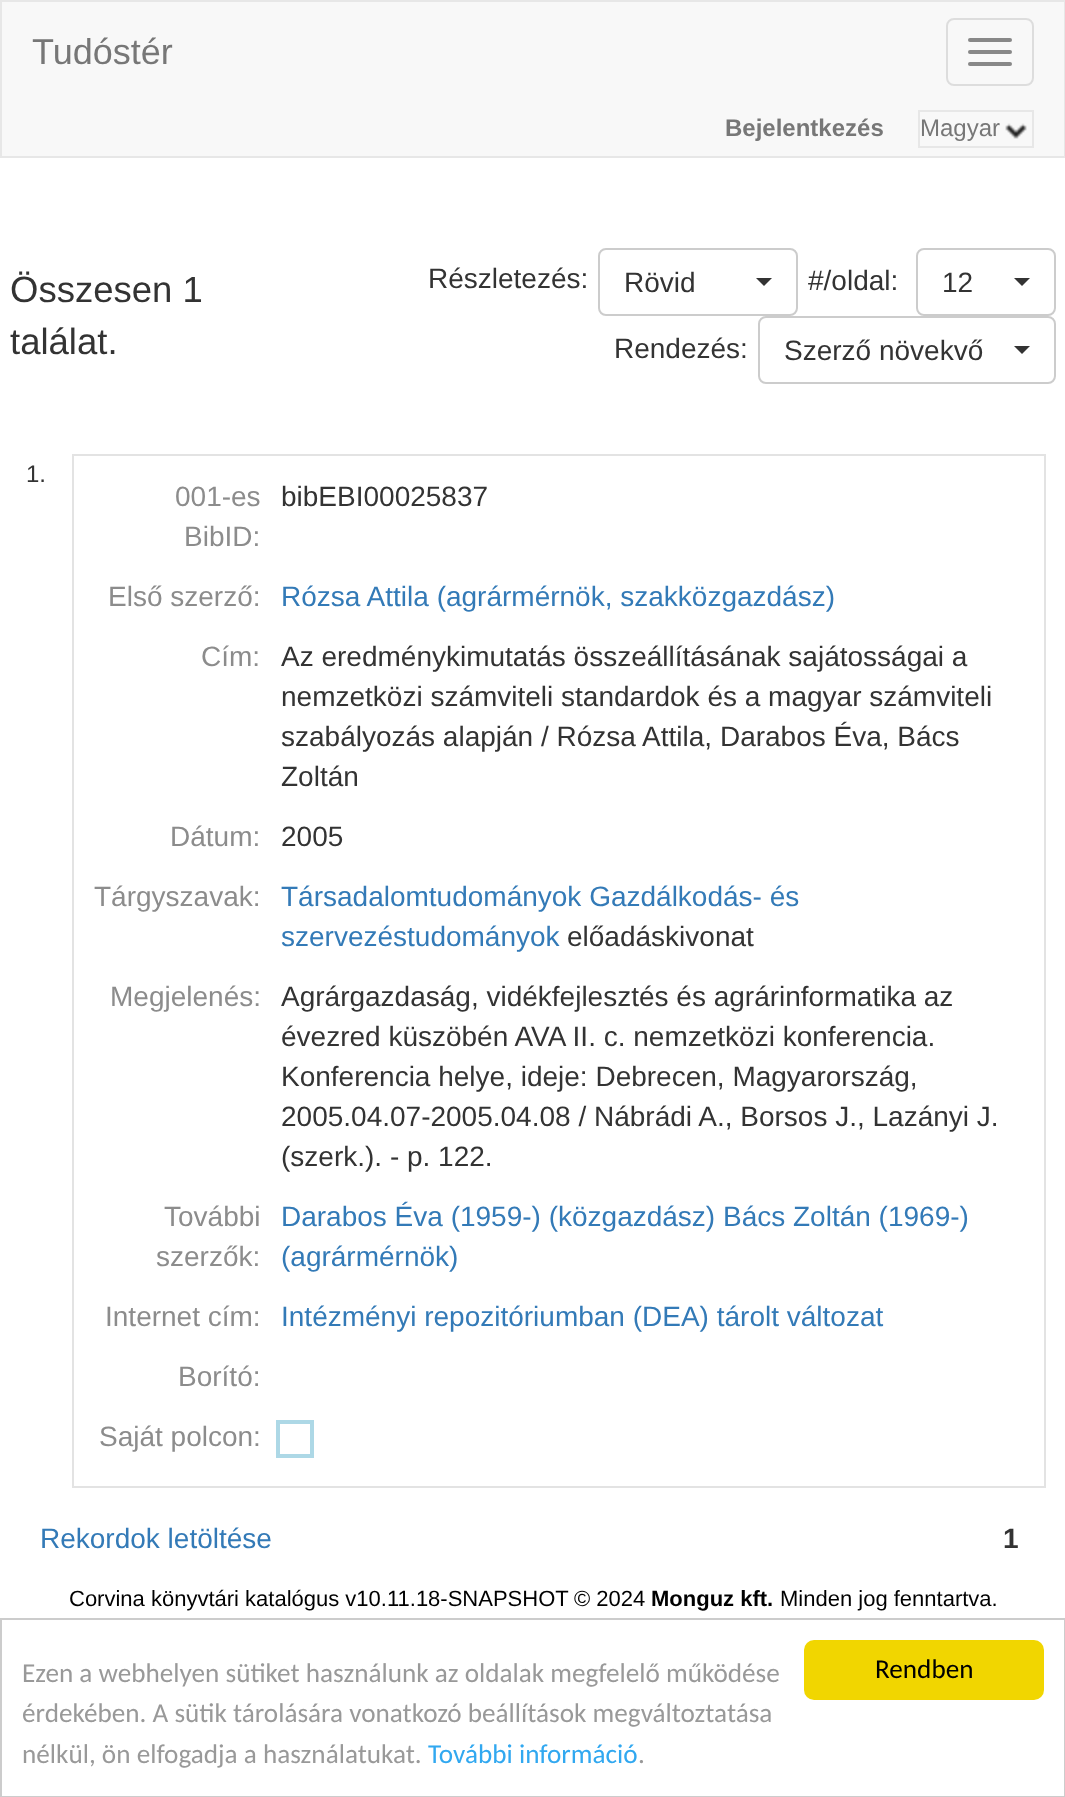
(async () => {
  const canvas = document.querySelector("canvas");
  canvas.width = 1065;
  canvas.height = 1797;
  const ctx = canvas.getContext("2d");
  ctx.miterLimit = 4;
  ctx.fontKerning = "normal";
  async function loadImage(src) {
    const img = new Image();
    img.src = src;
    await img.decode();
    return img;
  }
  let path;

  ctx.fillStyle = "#ffffff";
  ctx.fillRect(0, 0, 1065, 1797);
  ctx.fillStyle = "#f8f8f8";
  ctx.beginPath();
  ctx.rect(1, 1, 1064, 156);
  ctx.fill();
  ctx.strokeStyle = "#e7e7e7";
  ctx.lineWidth = 2;
  ctx.stroke();
  ctx.beginPath();
  ctx.roundRect(947, 19, 86, 66, 7);
  ctx.strokeStyle = "#dddddd";
  ctx.stroke();
  ctx.fillStyle = "#888888";
  ctx.beginPath();
  ctx.roundRect(968, 38, 44, 4, 2);
  ctx.fill();
  ctx.beginPath();
  ctx.roundRect(968, 50, 44, 4, 2);
  ctx.fill();
  ctx.beginPath();
  ctx.roundRect(968, 62, 44, 4, 2);
  ctx.fill();
  ctx.drawImage(await loadImage("img/1.png"), 1005, 123, 22, 16);
  ctx.strokeStyle = "#e7e7e7";
  ctx.strokeRect(919, 111, 114, 36);
  ctx.beginPath();
  ctx.roundRect(599, 249, 198, 66, 7);
  ctx.strokeStyle = "#cccccc";
  ctx.stroke();
  ctx.fillStyle = "#333333";
  path = new Path2D("M756 278H772L764 286Z");
  ctx.fill(path);
  ctx.beginPath();
  ctx.roundRect(917, 249, 138, 66, 7);
  ctx.stroke();
  path = new Path2D("M1014 278H1030L1022 286Z");
  ctx.fill(path);
  ctx.beginPath();
  ctx.roundRect(759, 317, 296, 66, 7);
  ctx.stroke();
  path = new Path2D("M1014 346H1030L1022 354Z");
  ctx.fill(path);
  for (const [x, y, w, h, color] of [
    [72, 454, 974, 2, "#e3e3e3"],
    [1044, 454, 2, 1034, "#e3e3e3"],
    [72, 1486, 974, 2, "#e3e3e3"],
    [72, 454, 2, 1034, "#e3e3e3"],
  ]) {
    ctx.fillStyle = color;
    ctx.fillRect(x, y, w, h);
  }
  ctx.strokeStyle = "#add8e6";
  ctx.lineWidth = 4;
  ctx.strokeRect(278, 1422, 34, 34);
  ctx.strokeStyle = "#cccccc";
  ctx.lineWidth = 2;
  ctx.strokeRect(1, 1619, 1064, 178);
  ctx.fillStyle = "#f1d600";
  ctx.beginPath();
  ctx.roundRect(804, 1640, 240, 60, 10);
  ctx.fill();
  ctx.font = "36px Liberation Sans";
  ctx.fillStyle = "#777777";
  ctx.fillText("Tudóstér", 32, 64);
  ctx.font = "bold 24px Liberation Sans";
  ctx.fillText("Bejelentkezés", 725, 136);
  ctx.font = "24px Liberation Sans";
  ctx.fillText("Magyar", 920, 136);
  ctx.font = "36.5px Liberation Sans";
  ctx.fillStyle = "#333333";
  ctx.fillText("Összesen 1", 10, 302);
  ctx.fillText("találat.", 10, 354);
  ctx.font = "28px Liberation Sans";
  for (const [text, x, y] of [
    ["Részletezés:", 428, 288],
    ["Rövid", 624, 292],
    ["#/oldal:", 808, 290],
    ["12", 942, 292],
    ["Rendezés:", 614, 358],
    ["Szerző növekvő", 784, 360],
  ]) {
    ctx.fillText(text, x, y);
  }
  ctx.font = "24px Liberation Sans";
  ctx.fillText("1.", 26, 482);
  ctx.font = "28px Liberation Sans";
  ctx.fillStyle = "#8c8c8c";
  ctx.fillText("001-es", 175, 506);
  ctx.fillText("BibID:", 184, 546);
  ctx.fillStyle = "#333333";
  ctx.fillText("bibEBI00025837", 281, 506);
  ctx.fillStyle = "#8c8c8c";
  ctx.fillText("Első szerző:", 108, 606);
  ctx.fillStyle = "#337ab7";
  ctx.fillText("Rózsa Attila (agrármérnök, szakközgazdász)", 281, 606);
  ctx.fillStyle = "#8c8c8c";
  ctx.fillText("Cím:", 201, 666);
  ctx.fillStyle = "#333333";
  for (const [text, x, y] of [
    ["Az eredménykimutatás összeállításának sajátosságai a", 281, 666],
    ["nemzetközi számviteli standardok és a magyar számviteli", 281, 706],
    ["szabályozás alapján / Rózsa Attila, Darabos Éva, Bács", 281, 746],
    ["Zoltán", 281, 786],
  ]) {
    ctx.fillText(text, x, y);
  }
  ctx.fillStyle = "#8c8c8c";
  ctx.fillText("Dátum:", 170, 846);
  ctx.fillStyle = "#333333";
  ctx.fillText("2005", 281, 846);
  ctx.fillStyle = "#8c8c8c";
  ctx.fillText("Tárgyszavak:", 94, 906);
  ctx.fillStyle = "#337ab7";
  ctx.fillText("Társadalomtudományok Gazdálkodás- és", 281, 906);
  ctx.fillText("szervezéstudományok", 281, 946);
  ctx.fillStyle = "#333333";
  ctx.fillText("előadáskivonat", 567, 946);
  ctx.fillStyle = "#8c8c8c";
  ctx.fillText("Megjelenés:", 110, 1006);
  ctx.fillStyle = "#333333";
  for (const [text, x, y] of [
    ["Agrárgazdaság, vidékfejlesztés és agrárinformatika az", 281, 1006],
    ["évezred küszöbén AVA II. c. nemzetközi konferencia.", 281, 1046],
    ["Konferencia helye, ideje: Debrecen, Magyarország,", 281, 1086],
    ["2005.04.07-2005.04.08 / Nábrádi A., Borsos J., Lazányi J.", 281, 1126],
    ["(szerk.). - p. 122.", 281, 1166],
  ]) {
    ctx.fillText(text, x, y);
  }
  ctx.fillStyle = "#8c8c8c";
  ctx.fillText("További", 164, 1226);
  ctx.fillText("szerzők:", 156, 1266);
  ctx.fillStyle = "#337ab7";
  ctx.fillText("Darabos Éva (1959-) (közgazdász) Bács Zoltán (1969-)", 281, 1226);
  ctx.fillText("(agrármérnök)", 281, 1266);
  ctx.fillStyle = "#8c8c8c";
  ctx.fillText("Internet cím:", 105, 1326);
  ctx.fillStyle = "#337ab7";
  ctx.fillText("Intézményi repozitóriumban (DEA) tárolt változat", 281, 1326);
  ctx.fillStyle = "#8c8c8c";
  ctx.fillText("Borító:", 178, 1386);
  ctx.fillText("Saját polcon:", 99, 1446);
  ctx.fillStyle = "#337ab7";
  ctx.fillText("Rekordok letöltése", 40, 1548);
  ctx.font = "bold 28px Liberation Sans";
  ctx.fillStyle = "#333333";
  ctx.fillText("1", 1003, 1548);
  ctx.font = "22px Liberation Sans";
  ctx.fillStyle = "#000000";
  ctx.fillText("Corvina könyvtári katalógus v10.11.18-SNAPSHOT", 69, 1606);
  ctx.fillText("© 2024", 574, 1606);
  ctx.font = "bold 22px Liberation Sans";
  ctx.fillText("Monguz kft.", 651, 1606);
  ctx.font = "22px Liberation Sans";
  ctx.fillText("Minden jog fenntartva.", 780, 1606);
  ctx.font = "27.2px Carlito";
  ctx.fillStyle = "#999999";
  for (const [text, x, y] of [
    ["Ezen a webhelyen sütiket használunk az oldalak megfelelő működése", 22, 1682],
    ["érdekében. A sütik tárolására vonatkozó beállítások megváltoztatása", 22, 1722],
    ["nélkül, ön elfogadja a használatukat.", 22, 1763],
  ]) {
    ctx.fillText(text, x, y);
  }
  ctx.fillStyle = "#31a8f0";
  ctx.fillText("További információ", 428, 1763);
  ctx.fillStyle = "#999999";
  ctx.fillText(".", 638, 1763);
  ctx.fillStyle = "#000000";
  ctx.fillText("Rendben", 875, 1678);
})();
